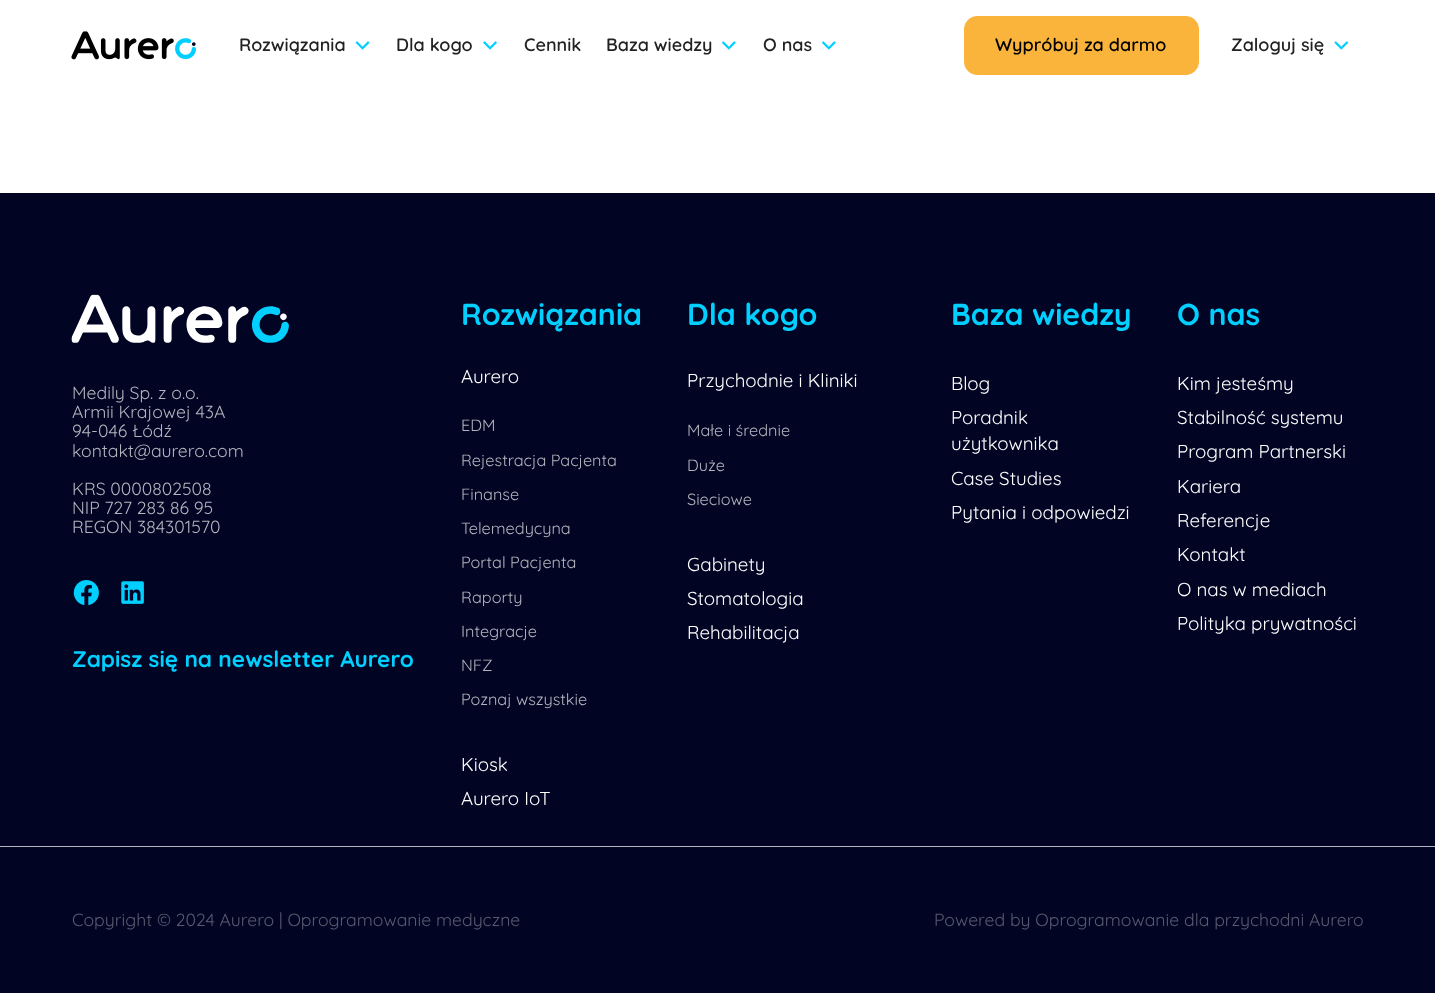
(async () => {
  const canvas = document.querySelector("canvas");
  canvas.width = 1435;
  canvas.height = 993;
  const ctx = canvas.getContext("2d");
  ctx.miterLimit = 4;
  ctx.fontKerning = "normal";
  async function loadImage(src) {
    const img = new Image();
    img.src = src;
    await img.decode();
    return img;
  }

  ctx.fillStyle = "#ffffff";
  ctx.fillRect(0, 0, 1435, 993);
  ctx.drawImage(await loadImage("img/1.png"), 71, 31, 125, 29);
  ctx.drawImage(await loadImage("img/2.png"), 355, 41, 15, 9);
  ctx.drawImage(await loadImage("img/3.png"), 483, 41, 14, 9);
  ctx.drawImage(await loadImage("img/4.png"), 721, 41, 15, 9);
  ctx.drawImage(await loadImage("img/4.png"), 821, 41, 15, 9);
  ctx.fillStyle = "#fab43c";
  ctx.beginPath();
  ctx.roundRect(964.5, 16.5, 234, 58, 12.5);
  ctx.fill();
  ctx.strokeStyle = "#fab43c";
  ctx.stroke();
  ctx.drawImage(await loadImage("img/5.png"), 1334, 41, 15, 9);
  ctx.fillStyle = "#010523";
  ctx.fillRect(0, 193, 1435, 800);
  ctx.drawImage(await loadImage("img/6.png"), 71, 294, 218, 49);
  ctx.drawImage(await loadImage("img/7.png"), 73, 580, 26, 26);
  ctx.drawImage(await loadImage("img/8.png"), 121, 581, 23, 23);
  ctx.fillStyle = "#b3b4bd";
  ctx.fillRect(0, 846, 1435, 1);
  ctx.font = "600 18px Quicksand";
  ctx.fillStyle = "#222222";
  for (const [text, x, y] of [
    ["Rozwiązania", 239, 51],
    ["Dla kogo", 396, 51],
    ["Cennik", 524, 51],
    ["Baza wiedzy", 606, 51],
    ["O nas", 763, 51],
  ]) {
    ctx.fillText(text, x, y);
  }
  ctx.fillStyle = "#000000";
  ctx.fillText("Wypróbuj za darmo", 995, 51);
  ctx.fillStyle = "#222222";
  ctx.fillText("Zaloguj się", 1231, 51);
  ctx.font = "17.6px Quicksand";
  ctx.fillStyle = "#b3b4bd";
  for (const [text, x, y] of [
    ["Medily Sp. z o.o.", 72, 399],
    ["Armii Krajowej 43A", 72, 418],
    ["94-046 Łódź", 72, 437],
    ["kontakt@aurero.com", 72, 457],
    ["KRS 0000802508", 72, 495],
    ["NIP 727 283 86 95", 72, 514],
    ["REGON 384301570", 72, 533],
  ]) {
    ctx.fillText(text, x, y);
  }
  ctx.font = "bold 22.6px Quicksand";
  ctx.fillStyle = "#00cfff";
  ctx.fillText("Zapisz się na newsletter Aurero", 72, 667);
  ctx.font = "bold 30.25px Quicksand";
  ctx.fillText("Rozwiązania", 461, 325);
  ctx.font = "18.75px Quicksand";
  ctx.fillStyle = "#ffffff";
  ctx.fillText("Aurero", 461, 383);
  ctx.font = "16.25px Quicksand";
  ctx.fillStyle = "#b3b4bd";
  for (const [text, x, y] of [
    ["EDM", 461, 431],
    ["Rejestracja Pacjenta", 461, 466],
    ["Finanse", 461, 500],
    ["Telemedycyna", 461, 534],
    ["Portal Pacjenta", 461, 568],
    ["Raporty", 461, 603],
    ["Integracje", 461, 637],
    ["NFZ", 461, 671],
    ["Poznaj wszystkie", 461, 705],
  ]) {
    ctx.fillText(text, x, y);
  }
  ctx.font = "18.75px Quicksand";
  ctx.fillStyle = "#ffffff";
  ctx.fillText("Kiosk", 461, 771);
  ctx.fillText("Aurero IoT", 461, 805);
  ctx.font = "bold 30.25px Quicksand";
  ctx.fillStyle = "#00cfff";
  ctx.fillText("Dla kogo", 687, 325);
  ctx.font = "18.75px Quicksand";
  ctx.fillStyle = "#ffffff";
  ctx.fillText("Przychodnie i Kliniki", 687, 387);
  ctx.font = "16.25px Quicksand";
  ctx.fillStyle = "#b3b4bd";
  for (const [text, x, y] of [
    ["Małe i średnie", 687, 436],
    ["Duże", 687, 471],
    ["Sieciowe", 687, 505],
  ]) {
    ctx.fillText(text, x, y);
  }
  ctx.font = "18.75px Quicksand";
  ctx.fillStyle = "#ffffff";
  for (const [text, x, y] of [
    ["Gabinety", 687, 571],
    ["Stomatologia", 687, 605],
    ["Rehabilitacja", 687, 639],
  ]) {
    ctx.fillText(text, x, y);
  }
  ctx.font = "bold 30.25px Quicksand";
  ctx.fillStyle = "#00cfff";
  ctx.fillText("Baza wiedzy", 951, 325);
  ctx.font = "18.75px Quicksand";
  ctx.fillStyle = "#ffffff";
  for (const [text, x, y] of [
    ["Blog", 951, 390],
    ["Poradnik", 951, 424],
    ["użytkownika", 951, 450],
    ["Case Studies", 951, 485],
    ["Pytania i odpowiedzi", 951, 519],
  ]) {
    ctx.fillText(text, x, y);
  }
  ctx.font = "bold 30.25px Quicksand";
  ctx.fillStyle = "#00cfff";
  ctx.fillText("O nas", 1177, 325);
  ctx.font = "18.75px Quicksand";
  ctx.fillStyle = "#ffffff";
  for (const [text, x, y] of [
    ["Kim jesteśmy", 1177, 390],
    ["Stabilność systemu", 1177, 424],
    ["Program Partnerski", 1177, 458],
    ["Kariera", 1177, 493],
    ["Referencje", 1177, 527],
    ["Kontakt", 1177, 561],
    ["O nas w mediach", 1177, 596],
    ["Polityka prywatności", 1177, 630],
  ]) {
    ctx.fillText(text, x, y);
  }
  ctx.font = "17.6px Quicksand";
  ctx.fillStyle = "#585b6e";
  ctx.fillText("Copyright © 2024 Aurero | Oprogramowanie medyczne", 72, 926);
  ctx.fillText("Powered by Oprogramowanie dla przychodni Aurero", 934, 926);
})();
